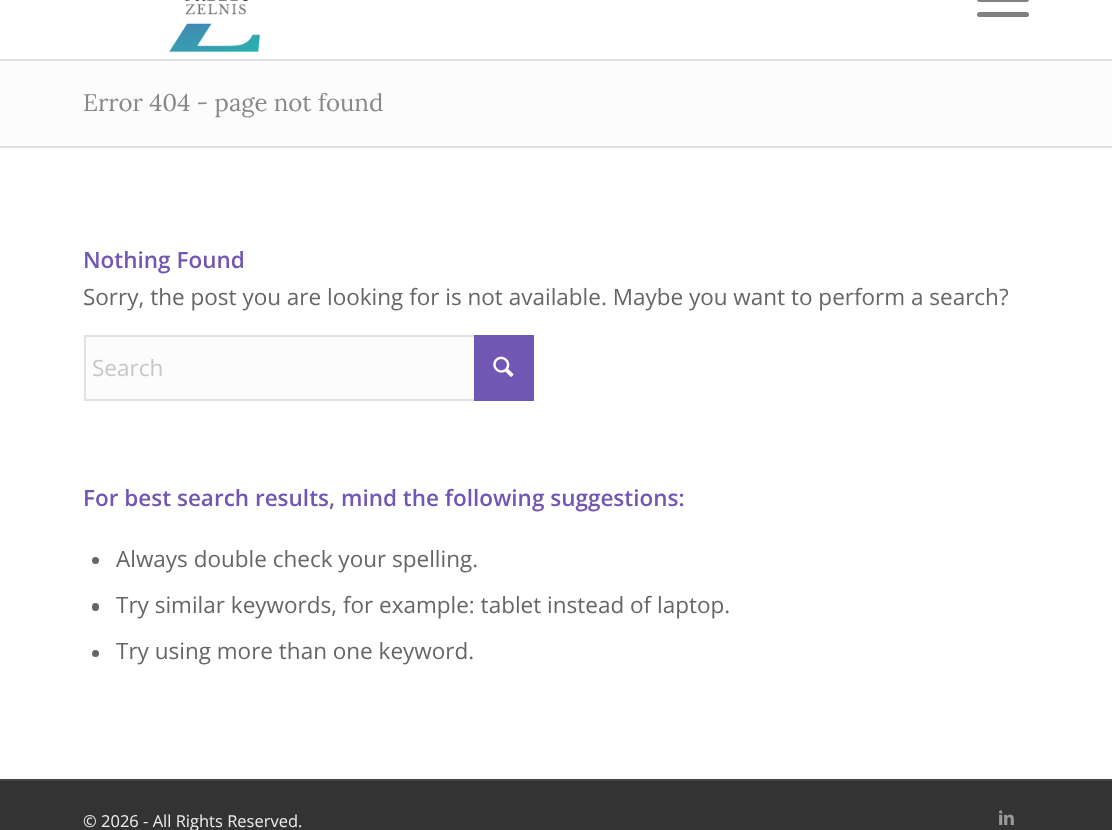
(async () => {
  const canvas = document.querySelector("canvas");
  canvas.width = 1112;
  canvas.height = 830;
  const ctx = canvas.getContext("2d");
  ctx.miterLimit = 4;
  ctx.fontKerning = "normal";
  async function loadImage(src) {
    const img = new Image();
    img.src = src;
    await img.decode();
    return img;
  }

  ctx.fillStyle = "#ffffff";
  ctx.fillRect(0, 0, 1112, 830);
  ctx.fillStyle = "#e1e1e1";
  ctx.fillRect(0, 59, 1112, 2);
  ctx.drawImage(await loadImage("img/1.png"), 169, 0, 91, 53);
  ctx.fillStyle = "#808080";
  ctx.beginPath();
  ctx.roundRect(977, -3, 52, 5, 2.5);
  ctx.fill();
  ctx.beginPath();
  ctx.roundRect(977, 12, 52, 5, 2.5);
  ctx.fill();
  for (const [x, y, w, h, color] of [
    [0, 61, 1112, 85, "#fcfcfc"],
    [0, 146, 1112, 2, "#e1e1e1"],
    [86, 337, 388, 62, "#fcfcfc"],
  ]) {
    ctx.fillStyle = color;
    ctx.fillRect(x, y, w, h);
  }
  ctx.strokeStyle = "#e1e1e1";
  ctx.lineWidth = 2;
  ctx.strokeRect(85, 336, 448, 64);
  ctx.fillStyle = "#7156b3";
  ctx.fillRect(474, 335, 60, 66);
  ctx.drawImage(await loadImage("img/2.png"), 493, 356, 21, 21);
  ctx.fillStyle = "#666666";
  ctx.beginPath();
  ctx.arc(95.5, 560.5, 3.5, 0, Math.PI * 2);
  ctx.fill();
  ctx.beginPath();
  ctx.roundRect(92, 603, 7, 8, 3.5);
  ctx.fill();
  ctx.beginPath();
  ctx.arc(95.5, 653.5, 3.5, 0, Math.PI * 2);
  ctx.fill();
  ctx.fillStyle = "#333333";
  ctx.fillRect(0, 781, 1112, 49);
  ctx.fillStyle = "#444444";
  ctx.fillRect(0, 779, 1112, 2);
  ctx.drawImage(await loadImage("img/3.png"), 999, 810, 15, 15);
  ctx.font = "24px Lora";
  ctx.fillStyle = "#888888";
  ctx.fillText("Error 404 - page not found", 83, 111);
  ctx.font = "600 22.5px Open Sans";
  ctx.fillStyle = "#7156b3";
  ctx.fillText("Nothing Found", 83, 268);
  ctx.font = "22.5px Open Sans";
  ctx.fillStyle = "#666666";
  ctx.fillText("Sorry, the post you are looking for is not available. Maybe you want to perform a search?", 83, 305);
  ctx.fillStyle = "#c7c7c7";
  ctx.fillText("Search", 92, 376);
  ctx.font = "600 22.5px Open Sans";
  ctx.fillStyle = "#7156b3";
  ctx.fillText("For best search results, mind the following suggestions:", 83, 506);
  ctx.font = "22.5px Open Sans";
  ctx.fillStyle = "#666666";
  for (const [text, x, y] of [
    ["Always double check your spelling.", 116, 567],
    ["Try similar keywords, for example: tablet instead of laptop.", 116, 613],
    ["Try using more than one keyword.", 116, 659],
  ]) {
    ctx.fillText(text, x, y);
  }
  ctx.font = "16.5px Open Sans";
  ctx.fillStyle = "#eeeeee";
  ctx.fillText("© 2026 - All Rights Reserved.", 83, 827);
})();
